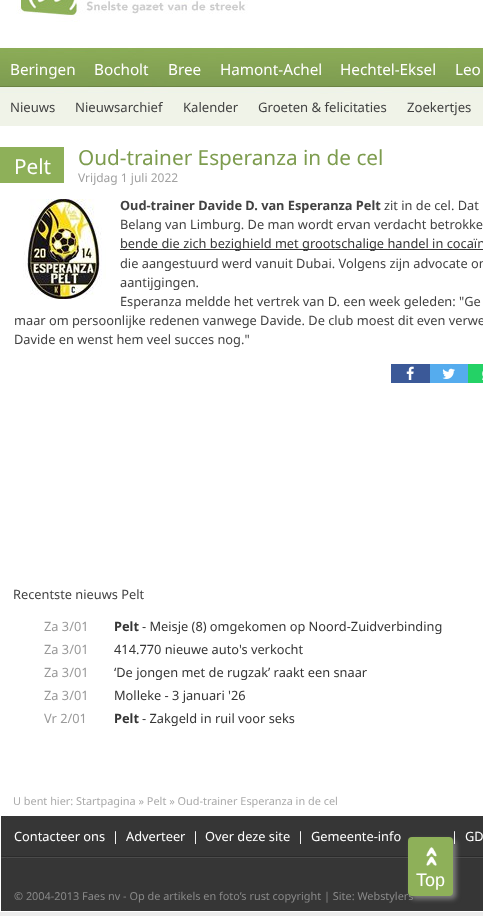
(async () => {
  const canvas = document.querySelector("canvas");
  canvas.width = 483;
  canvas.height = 916;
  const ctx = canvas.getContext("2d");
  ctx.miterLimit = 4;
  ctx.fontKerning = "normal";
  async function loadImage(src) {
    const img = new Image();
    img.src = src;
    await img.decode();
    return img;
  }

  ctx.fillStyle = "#ededed";
  ctx.fillRect(0, 0, 483, 916);
  ctx.fillStyle = "#ffffff";
  ctx.fillRect(0, 126, 483, 670);
  ctx.drawImage(await loadImage("img/1.png"), 0, 0, 483, 126);
  ctx.fillStyle = "#8eb059";
  ctx.fillRect(0, 147, 64, 36);
  ctx.drawImage(await loadImage("img/2.png"), 23, 199, 83, 100);
  ctx.fillStyle = "#363636";
  ctx.fillRect(120, 249, 363, 1);
  ctx.fillStyle = "#3b5998";
  ctx.fillRect(391, 364, 39, 19);
  ctx.drawImage(await loadImage("img/3.png"), 406, 366, 8, 14);
  ctx.fillStyle = "#55acee";
  ctx.fillRect(430, 364, 38, 19);
  ctx.drawImage(await loadImage("img/4.png"), 442, 368, 13, 11);
  ctx.fillStyle = "#24d266";
  ctx.fillRect(468, 364, 15, 19);
  ctx.drawImage(await loadImage("img/5.png"), 482, 371, 1, 9);
  ctx.drawImage(await loadImage("img/6.png"), 0, 796, 483, 116);
  ctx.fillStyle = "#808080";
  ctx.filter = "blur(2.5px)";
  ctx.beginPath();
  ctx.roundRect(411, 840, 45, 59, 4);
  ctx.fill();
  ctx.filter = "none";
  ctx.font = "15.25px Noto Sans";
  ctx.fillStyle = "#ffffff";
  for (const [text, x, y] of [
    ["Beringen", 10, 75],
    ["Bocholt", 94, 75],
    ["Bree", 168, 75],
    ["Hamont-Achel", 220, 75],
    ["Hechtel-Eksel", 340, 75],
    ["Leo", 455, 75],
  ]) {
    ctx.fillText(text, x, y);
  }
  ctx.font = "13.1px Noto Sans";
  ctx.fillStyle = "#424242";
  for (const [text, x, y] of [
    ["Nieuws", 10, 112],
    ["Nieuwsarchief", 75, 112],
    ["Kalender", 183, 112],
    ["Groeten & felicitaties", 258, 112],
    ["Zoekertjes", 407, 112],
  ]) {
    ctx.fillText(text, x, y);
  }
  ctx.font = "20.75px Noto Sans";
  ctx.fillStyle = "#ffffff";
  ctx.fillText("Pelt", 14, 174);
  ctx.fillStyle = "#7d9c4e";
  ctx.fillText("Oud-trainer Esperanza in de cel", 78, 165);
  ctx.font = "12px Noto Sans";
  ctx.fillStyle = "#a1a1a1";
  ctx.fillText("Vrijdag 1 juli 2022", 78, 182);
  ctx.font = "bold 12.8px Noto Sans";
  ctx.fillStyle = "#424242";
  ctx.fillText("Oud-trainer Davide D. van Esperanza Pelt", 120, 210);
  ctx.font = "12.8px Noto Sans";
  ctx.fillText("zit in de cel. Dat", 384, 210);
  ctx.fillText("Belang van Limburg. De man wordt ervan verdacht betrokke", 120, 229);
  ctx.fillStyle = "#363636";
  ctx.fillText("bende die zich bezighield met grootschalige handel in cocaïn", 120, 248);
  ctx.fillStyle = "#424242";
  for (const [text, x, y] of [
    ["die aangestuurd werd vanuit Dubai. Volgens zijn advocate on", 120, 268],
    ["aantijgingen.", 120, 287],
    ["Esperanza meldde het vertrek van D. een week geleden: \"Ge", 120, 306],
    ["maar om persoonlijke redenen vanwege Davide. De club moest dit even verwe", 14, 325],
    ["Davide en wenst hem veel succes nog.\"", 14, 344],
    ["Recentste nieuws Pelt", 13, 599],
  ]) {
    ctx.fillText(text, x, y);
  }
  ctx.fillStyle = "#9a9a9a";
  ctx.fillText("Za 3/01", 44, 631);
  ctx.font = "bold 12.8px Noto Sans";
  ctx.fillStyle = "#363636";
  ctx.fillText("Pelt", 114, 631);
  ctx.font = "12.8px Noto Sans";
  ctx.fillText("- Meisje (8) omgekomen op Noord-Zuidverbinding", 142, 631);
  ctx.fillStyle = "#9a9a9a";
  ctx.fillText("Za 3/01", 44, 654);
  ctx.fillStyle = "#363636";
  ctx.fillText("414.770 nieuwe auto's verkocht", 114, 654);
  ctx.fillStyle = "#9a9a9a";
  ctx.fillText("Za 3/01", 44, 677);
  ctx.fillStyle = "#363636";
  ctx.fillText("‘De jongen met de rugzak’ raakt een snaar", 114, 677);
  ctx.fillStyle = "#9a9a9a";
  ctx.fillText("Za 3/01", 44, 700);
  ctx.fillStyle = "#363636";
  ctx.fillText("Molleke - 3 januari '26", 114, 700);
  ctx.fillStyle = "#9a9a9a";
  ctx.fillText("Vr 2/01", 44, 723);
  ctx.font = "bold 12.8px Noto Sans";
  ctx.fillStyle = "#363636";
  ctx.fillText("Pelt", 114, 723);
  ctx.font = "12.8px Noto Sans";
  ctx.fillText("- Zakgeld in ruil voor seks", 142, 723);
  ctx.font = "10.9px Noto Sans";
  ctx.fillStyle = "#aaaaaa";
  ctx.fillText("U bent hier: Startpagina » Pelt » Oud-trainer Esperanza in de cel", 13, 805);
  ctx.font = "12.8px Noto Sans";
  ctx.fillStyle = "#ffffff";
  for (const [text, x, y] of [
    ["Contacteer ons", 14, 841],
    ["|", 112, 841],
    ["Adverteer", 126, 841],
    ["|", 192, 841],
    ["Over deze site", 205, 841],
    ["|", 297, 841],
    ["Gemeente-info", 311, 841],
    ["|", 451, 841],
    ["GD", 465, 841],
  ]) {
    ctx.fillText(text, x, y);
  }
  ctx.font = "10.9px Noto Sans";
  ctx.fillStyle = "#898989";
  ctx.fillText("© 2004-2013 Faes nv - Op de artikels en foto’s rust copyright | Site: Webstylers", 14, 900);
  ctx.fillStyle = "#8eb059";
  ctx.beginPath();
  ctx.roundRect(408, 837, 45, 59, 4);
  ctx.fill();
  ctx.drawImage(await loadImage("img/7.png"), 426, 847, 11, 19);
  ctx.font = "18px Liberation Sans";
  ctx.fillStyle = "#ffffff";
  ctx.fillText("Top", 416, 886);
})();
